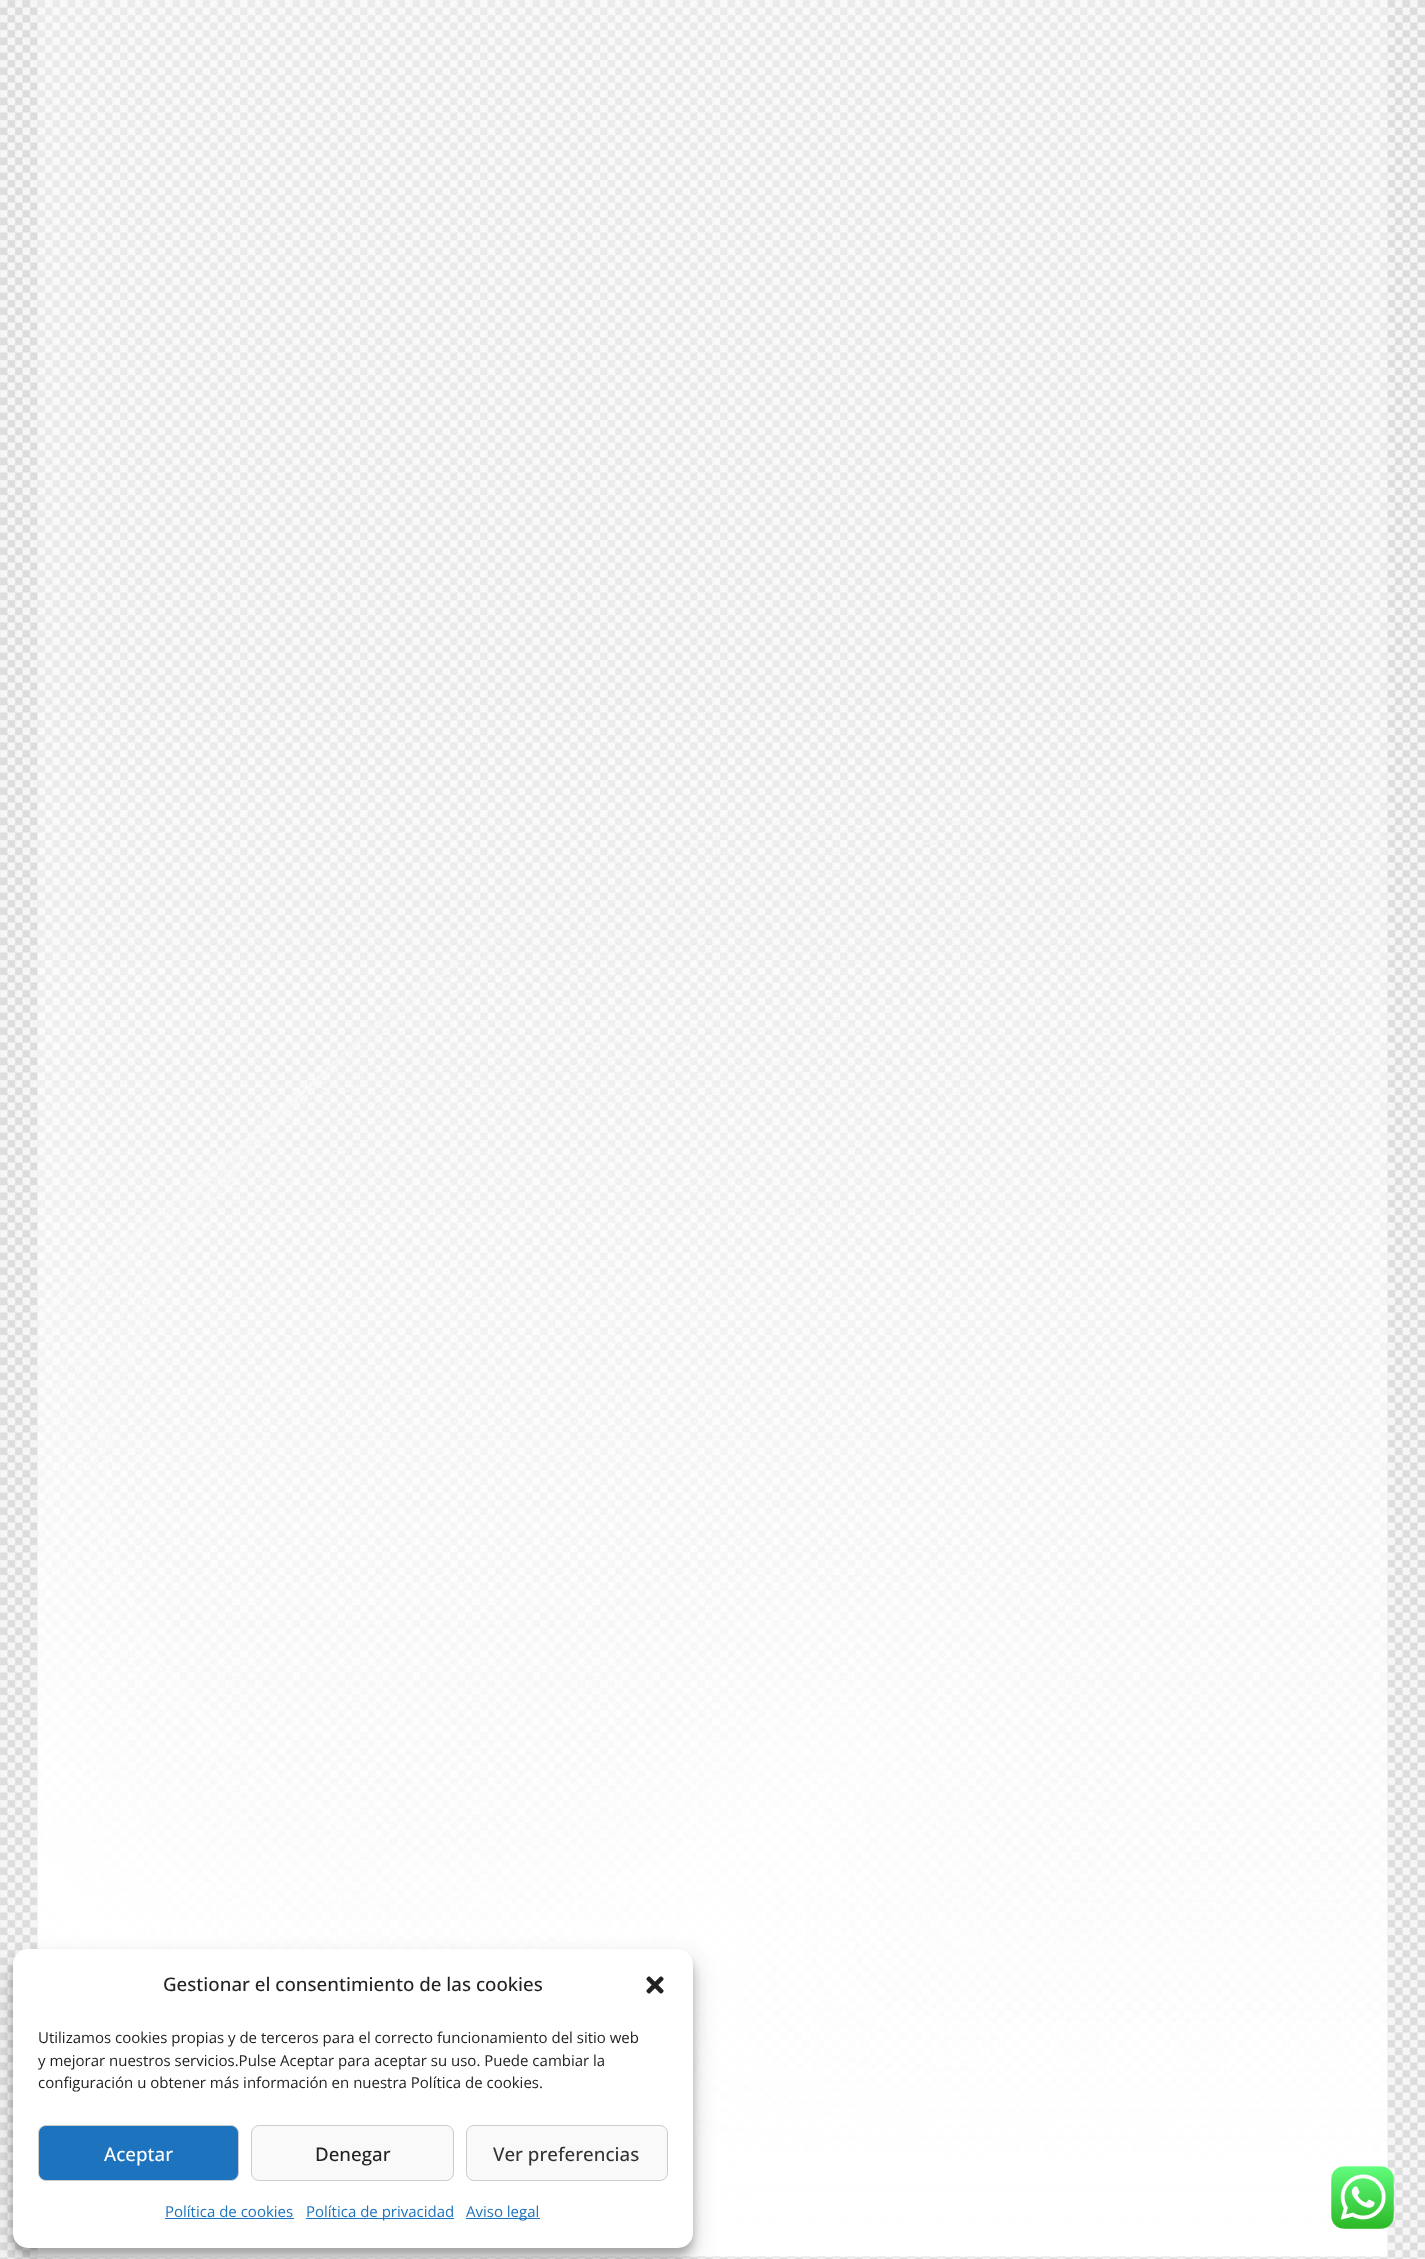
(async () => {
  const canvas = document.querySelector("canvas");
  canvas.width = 1425;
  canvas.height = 2259;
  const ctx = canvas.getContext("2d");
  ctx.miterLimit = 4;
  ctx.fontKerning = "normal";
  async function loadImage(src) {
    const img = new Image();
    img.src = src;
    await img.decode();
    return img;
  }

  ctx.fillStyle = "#ffffff";
  ctx.fillRect(0, 0, 1425, 2259);
  ctx.drawImage(await loadImage("img/1.png"), 0, 0, 1425, 2259);
  ctx.drawImage(await loadImage("img/2.png"), 37, 0, 1351, 2259);
  ctx.drawImage(await loadImage("img/3.png"), 1331, 2166, 63, 63);
  ctx.fillStyle = "rgba(0, 0, 0, 0.23)";
  ctx.filter = "blur(4px)";
  ctx.beginPath();
  ctx.roundRect(13, 1956, 680, 299, 15);
  ctx.fill();
  ctx.filter = "none";
  ctx.fillStyle = "rgba(0, 0, 0, 0.19)";
  ctx.filter = "blur(12.5px)";
  ctx.beginPath();
  ctx.roundRect(13, 1961, 680, 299, 15);
  ctx.fill();
  ctx.filter = "none";
  ctx.fillStyle = "#ffffff";
  ctx.beginPath();
  ctx.roundRect(13, 1949, 680, 299, 15);
  ctx.fill();
  ctx.drawImage(await loadImage("img/4.png"), 646, 1976, 18, 18);
  ctx.fillStyle = "#1e73be";
  ctx.beginPath();
  ctx.roundRect(38.5, 2125.5, 200, 55, 7.5);
  ctx.fill();
  ctx.strokeStyle = "#cccccc";
  ctx.stroke();
  ctx.fillStyle = "#f9f9f9";
  ctx.beginPath();
  ctx.roundRect(251.5, 2125.5, 202, 55, 7.5);
  ctx.fill();
  ctx.stroke();
  ctx.beginPath();
  ctx.roundRect(466.5, 2125.5, 201, 55, 7.5);
  ctx.fill();
  ctx.stroke();
  for (const [x, y, w, h, color] of [
    [165, 2218, 129, 1, "#1e73be"],
    [306, 2218, 148, 1, "#1e73be"],
    [466, 2218, 74, 1, "#1e73be"],
  ]) {
    ctx.fillStyle = color;
    ctx.fillRect(x, y, w, h);
  }
  ctx.font = "500 18.75px Open Sans";
  ctx.fillStyle = "#222222";
  ctx.fillText("Gestionar el consentimiento de las cookies", 163, 1991);
  ctx.font = "15px Open Sans";
  ctx.fillText("Utilizamos cookies propias y de terceros para el correcto funcionamiento del sitio web", 38, 2043);
  ctx.save();
  ctx.beginPath();
  ctx.rect(38, 2026, 630, 74);
  ctx.clip();
  ctx.fillText("y mejorar nuestros servicios.Pulse Aceptar para aceptar su uso. Puede cambiar la", 38, 2066);
  ctx.restore();
  ctx.fillText("configuración u obtener más información en nuestra Política de cookies.", 38, 2088);
  ctx.font = "500 18.75px Open Sans";
  ctx.fillStyle = "#ffffff";
  ctx.fillText("Aceptar", 104, 2161);
  ctx.fillStyle = "#222222";
  ctx.fillText("Denegar", 315, 2161);
  ctx.fillStyle = "#333333";
  ctx.fillText("Ver preferencias", 493, 2161);
  ctx.font = "15px Open Sans";
  ctx.fillStyle = "#1e73be";
  for (const [text, x, y] of [
    ["Política de cookies", 165, 2217],
    ["Política de privacidad", 306, 2217],
    ["Aviso legal", 466, 2217],
  ]) {
    ctx.fillText(text, x, y);
  }
})();
